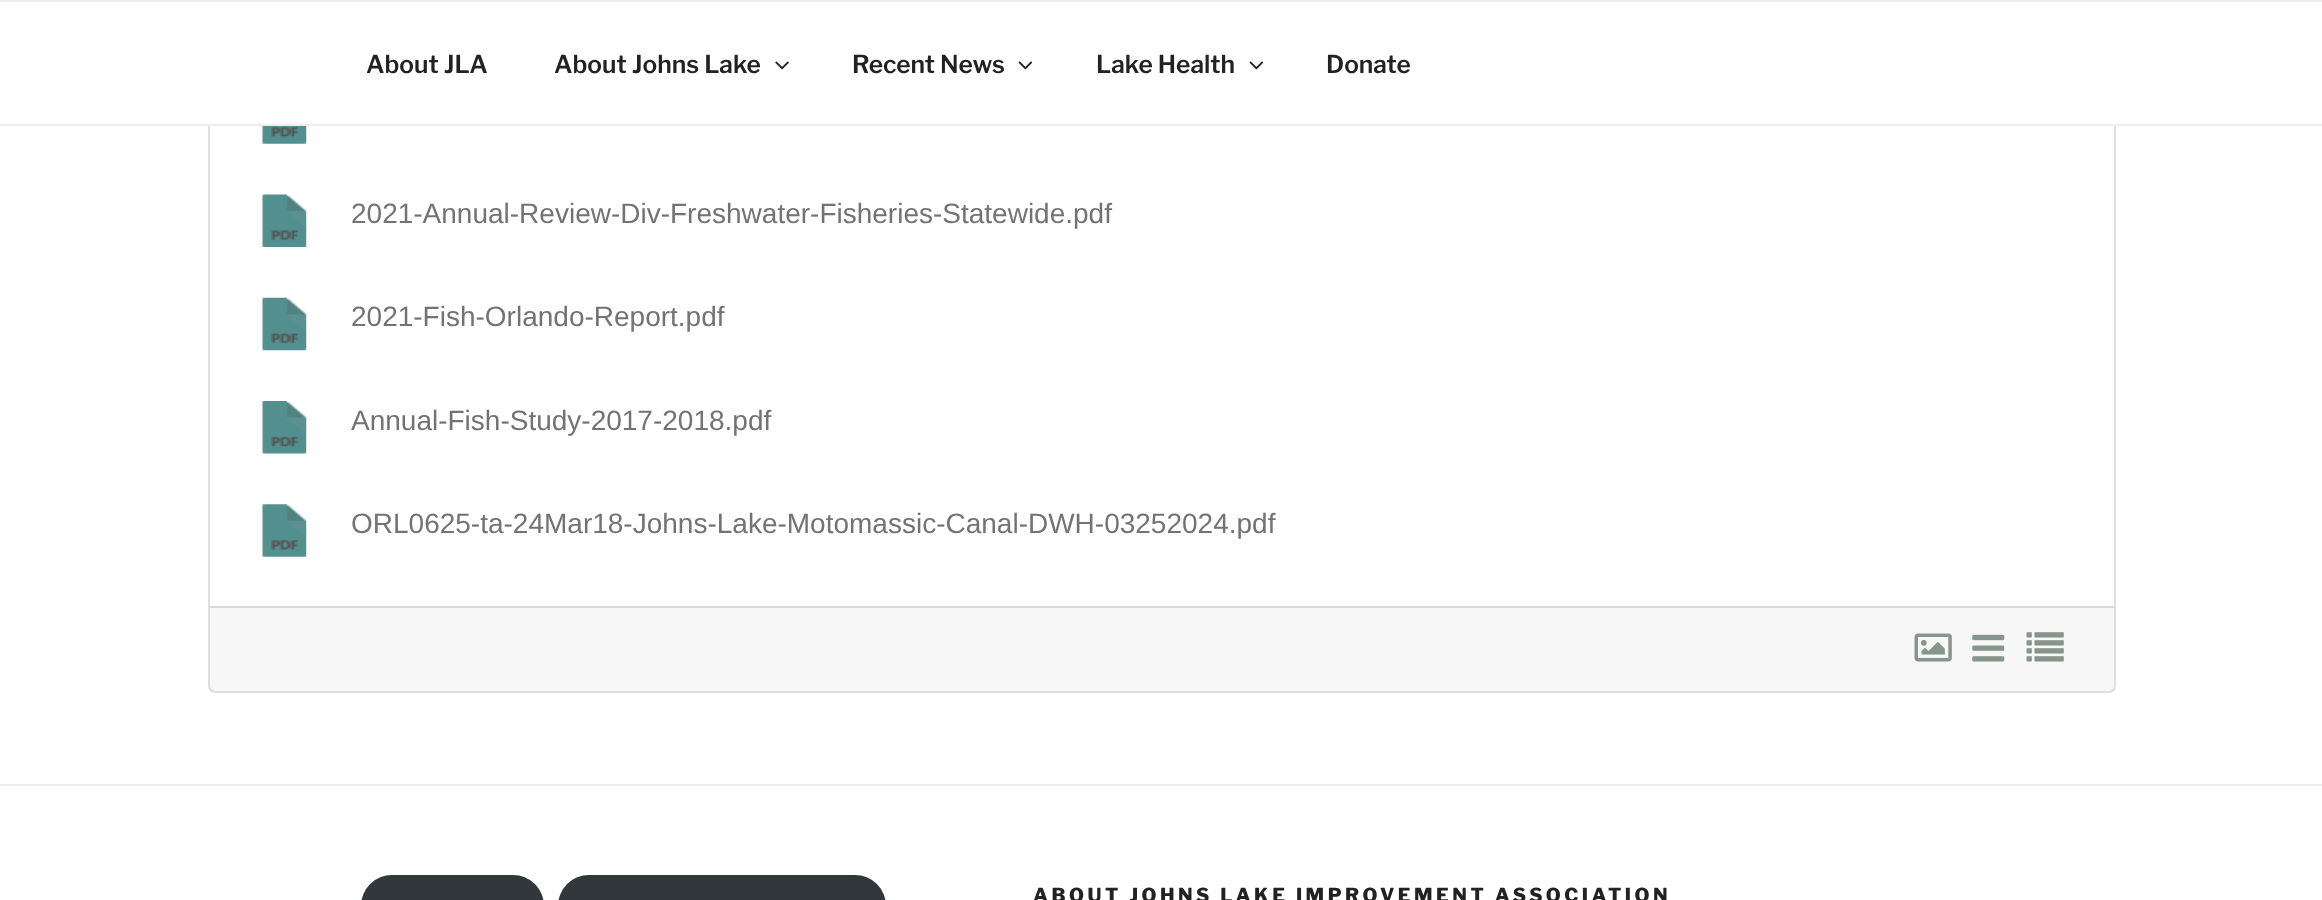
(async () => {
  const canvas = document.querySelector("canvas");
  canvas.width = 2322;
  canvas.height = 900;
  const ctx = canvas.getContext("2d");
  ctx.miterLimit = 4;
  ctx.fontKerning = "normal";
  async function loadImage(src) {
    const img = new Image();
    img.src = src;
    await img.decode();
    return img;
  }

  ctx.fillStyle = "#ffffff";
  ctx.fillRect(0, 0, 2322, 900);
  ctx.beginPath();
  ctx.roundRect(209, -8, 1906, 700, 6);
  ctx.strokeStyle = "#dfdfdf";
  ctx.lineWidth = 2;
  ctx.stroke();
  for (const [x, y, w, h, color] of [
    [208, 2, 1908, 122, "#ffffff"],
    [0, 0, 2322, 2, "#eeeeee"],
    [0, 124, 2322, 2, "#eeeeee"],
  ]) {
    ctx.fillStyle = color;
    ctx.fillRect(x, y, w, h);
  }
  ctx.drawImage(await loadImage("img/1.png"), 775, 61, 14, 9);
  ctx.drawImage(await loadImage("img/2.png"), 1018, 61, 15, 9);
  ctx.drawImage(await loadImage("img/2.png"), 1249, 61, 15, 9);
  ctx.drawImage(await loadImage("img/3.png"), 262, 126, 45, 18);
  ctx.drawImage(await loadImage("img/4.png"), 262, 194, 45, 53);
  ctx.drawImage(await loadImage("img/5.png"), 262, 297, 45, 54);
  ctx.drawImage(await loadImage("img/6.png"), 262, 401, 45, 53);
  ctx.drawImage(await loadImage("img/7.png"), 262, 504, 45, 53);
  ctx.fillStyle = "rgba(0, 0, 0, 0.03)";
  ctx.fillRect(210, 608, 1904, 83);
  ctx.fillStyle = "#d8d8d8";
  ctx.fillRect(210, 606, 1904, 2);
  ctx.drawImage(await loadImage("img/8.png"), 1914, 633, 38, 29);
  ctx.drawImage(await loadImage("img/9.png"), 1972, 634, 33, 28);
  ctx.drawImage(await loadImage("img/10.png"), 2026, 632, 38, 30);
  ctx.fillStyle = "#eeeeee";
  ctx.fillRect(0, 784, 2322, 2);
  ctx.fillStyle = "#32373c";
  ctx.beginPath();
  ctx.roundRect(361, 875, 183, 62, 37);
  ctx.fill();
  ctx.beginPath();
  ctx.roundRect(558, 875, 328, 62, 37);
  ctx.fill();
  ctx.font = "100 24.5px 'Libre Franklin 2'";
  ctx.fillStyle = "#222222";
  for (const [text, x, y] of [
    ["About JLA", 366, 73],
    ["About Johns Lake", 554, 73],
    ["Recent News", 852, 73],
    ["Lake Health", 1096, 73],
    ["Donate", 1326, 73],
  ]) {
    ctx.fillText(text, x, y);
  }
  ctx.font = "28px Liberation Sans";
  ctx.fillStyle = "#737373";
  for (const [text, x, y] of [
    ["2021-Annual-Review-Div-Freshwater-Fisheries-Statewide.pdf", 351, 223],
    ["2021-Fish-Orlando-Report.pdf", 351, 326],
    ["Annual-Fish-Study-2017-2018.pdf", 351, 430],
    ["ORL0625-ta-24Mar18-Johns-Lake-Motomassic-Canal-DWH-03252024.pdf", 351, 533],
  ]) {
    ctx.fillText(text, x, y);
  }
  ctx.letterSpacing = "3.5px";
  ctx.font = "100 19.25px Libre Franklin";
  ctx.fillStyle = "#222222";
  ctx.fillText("ABOUT JOHNS LAKE IMPROVEMENT ASSOCIATION", 1033, 902);
})();
